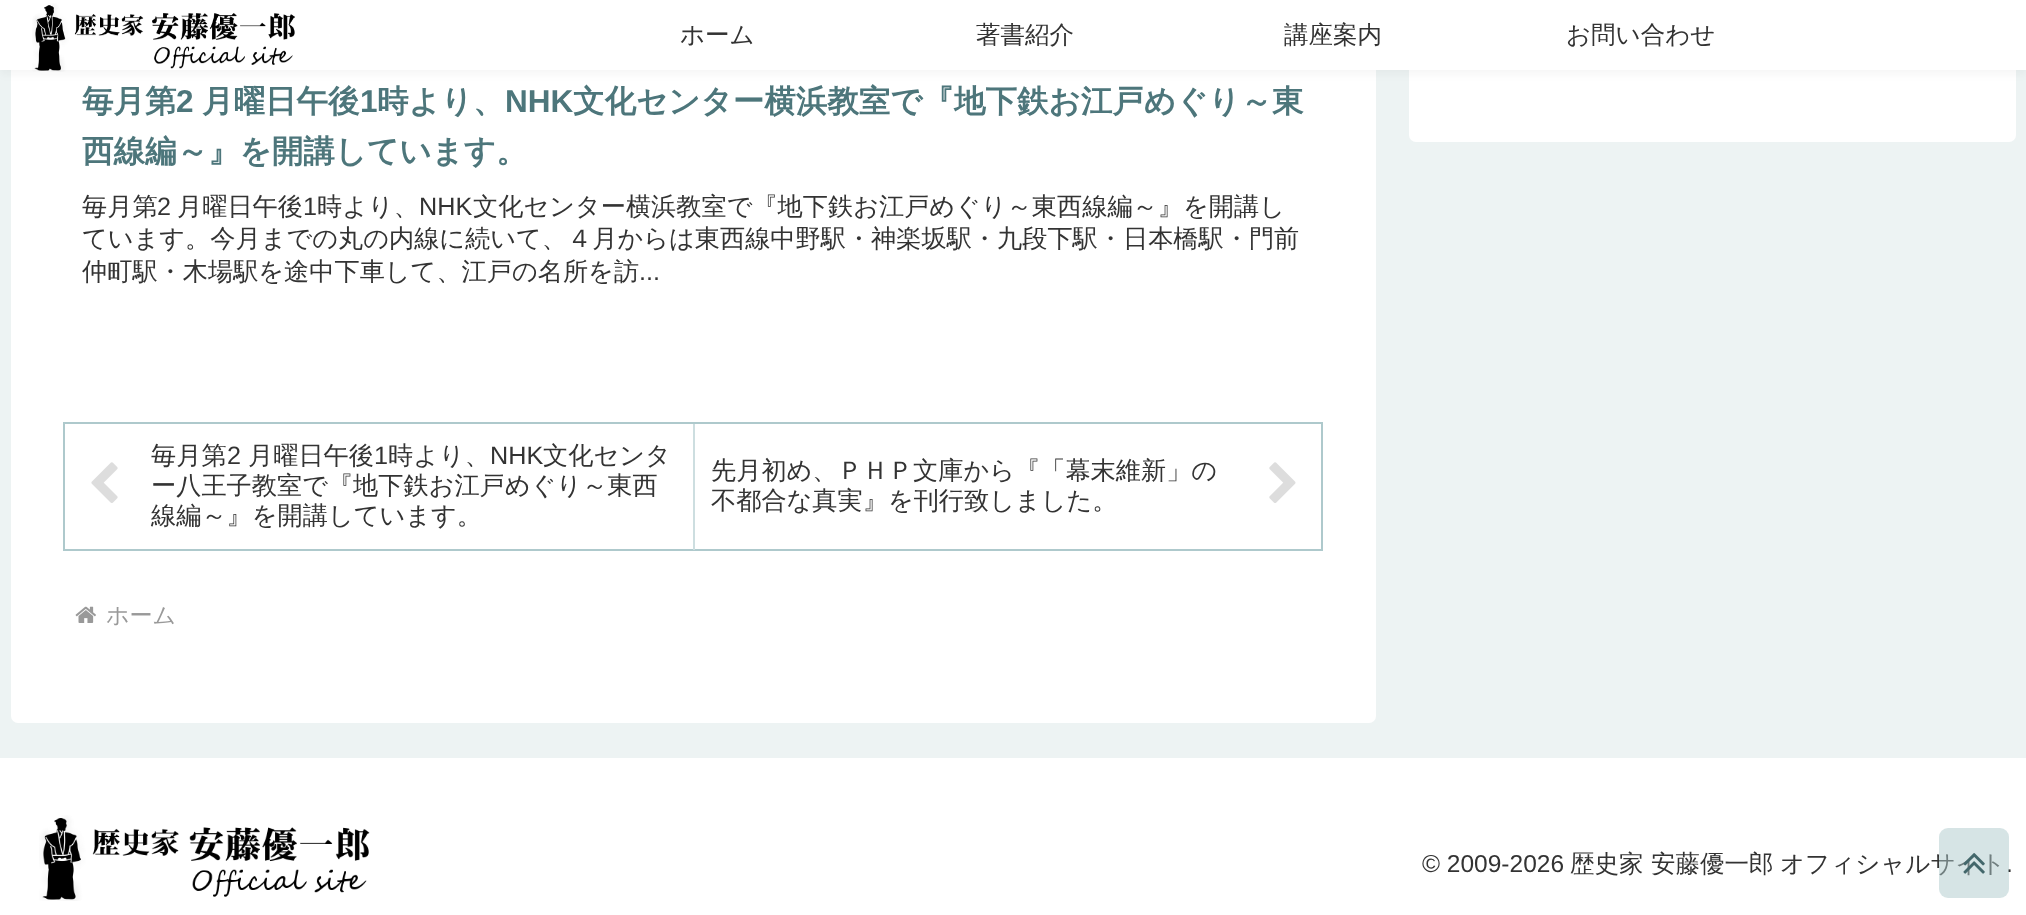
(async () => {
  const canvas = document.querySelector("canvas");
  canvas.width = 2026;
  canvas.height = 915;
  const ctx = canvas.getContext("2d");
  ctx.miterLimit = 4;
  ctx.fontKerning = "normal";
  async function loadImage(src) {
    const img = new Image();
    img.src = src;
    await img.decode();
    return img;
  }

  ctx.fillStyle = "#edf3f3";
  ctx.fillRect(0, 0, 2026, 915);
  ctx.fillStyle = "#ffffff";
  ctx.beginPath();
  ctx.roundRect(1409, -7, 607, 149, 7);
  ctx.fill();
  ctx.beginPath();
  ctx.roundRect(11, -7, 1365, 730, 7);
  ctx.fill();
  ctx.fillStyle = "rgba(0, 0, 0, 0.04)";
  ctx.filter = "blur(4.5px)";
  ctx.beginPath();
  ctx.rect(0, 4, 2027, 70);
  ctx.fill();
  ctx.filter = "none";
  ctx.fillStyle = "#ffffff";
  ctx.fillRect(0, 0, 2026, 70);
  ctx.drawImage(await loadImage("img/1.png"), 32, 3, 263, 69);
  ctx.strokeStyle = "#aec9cc";
  ctx.lineWidth = 2;
  ctx.strokeRect(64, 423, 1258, 127);
  ctx.drawImage(await loadImage("img/2.png"), 91, 462, 27, 41);
  ctx.fillStyle = "#cddee0";
  ctx.fillRect(693, 424, 2, 126);
  ctx.drawImage(await loadImage("img/3.png"), 1269, 462, 27, 41);
  ctx.drawImage(await loadImage("img/4.png"), 75, 606, 21, 17);
  ctx.fillStyle = "#ffffff";
  ctx.fillRect(0, 758, 2026, 157);
  ctx.drawImage(await loadImage("img/6.png"), 39, 815, 331, 86);
  ctx.font = "500 24.5px WenQuanYi Zen Hei";
  ctx.fillStyle = "#333333";
  for (const [text, x, y] of [
    ["ホーム", 680, 43],
    ["著書紹介", 976, 43],
    ["講座案内", 1284, 43],
    ["お問い合わせ", 1566, 43],
  ]) {
    ctx.fillText(text, x, y);
  }
  ctx.font = "bold 31.5px WenQuanYi Zen Hei";
  ctx.fillStyle = "#4d767b";
  ctx.fillText("毎月第", 82, 112);
  ctx.font = "bold 31.5px Liberation Sans";
  ctx.fillText("2", 176, 112);
  ctx.font = "bold 31.5px WenQuanYi Zen Hei";
  ctx.fillText("月曜日午後", 202, 112);
  ctx.font = "bold 31.5px Liberation Sans";
  ctx.fillText("1", 360, 112);
  ctx.font = "bold 31.5px WenQuanYi Zen Hei";
  ctx.fillText("時より、", 377, 112);
  ctx.font = "bold 31.5px Liberation Sans";
  ctx.fillText("NHK", 505, 112);
  ctx.font = "bold 31.5px WenQuanYi Zen Hei";
  ctx.fillText("文化センター横浜教室で『地下鉄お江戸めぐり～東", 573, 112);
  ctx.fillText("西線編～』を開講しています。", 82, 162);
  ctx.font = "500 25.2px WenQuanYi Zen Hei";
  ctx.fillStyle = "#333333";
  ctx.fillText("毎月第", 82, 215);
  ctx.font = "25.2px Liberation Sans";
  ctx.fillText("2", 157, 215);
  ctx.font = "500 25.2px WenQuanYi Zen Hei";
  ctx.fillText("月曜日午後", 177, 215);
  ctx.font = "25.2px Liberation Sans";
  ctx.fillText("1", 303, 215);
  ctx.font = "500 25.2px WenQuanYi Zen Hei";
  ctx.fillText("時より、", 317, 215);
  ctx.font = "25.2px Liberation Sans";
  ctx.fillText("NHK", 419, 215);
  ctx.font = "500 25.2px WenQuanYi Zen Hei";
  for (const [text, x, y] of [
    ["文化センター横浜教室で『地下鉄お江戸めぐり～東西線編～』を開講し", 473, 215],
    ["ています。今月までの丸の内線に続いて、４月からは東西線中野駅・神楽坂駅・九段下駅・日本橋駅・門前", 82, 247],
    ["仲町駅・木場駅を途中下車して、江戸の名所を訪", 82, 280],
  ]) {
    ctx.fillText(text, x, y);
  }
  ctx.font = "25.2px Liberation Sans";
  ctx.fillText("...", 639, 280);
  ctx.font = "500 25.2px WenQuanYi Zen Hei";
  ctx.fillText("毎月第", 151, 464);
  ctx.font = "25.2px Liberation Sans";
  ctx.fillText("2", 227, 464);
  ctx.font = "500 25.2px WenQuanYi Zen Hei";
  ctx.fillText("月曜日午後", 248, 464);
  ctx.font = "25.2px Liberation Sans";
  ctx.fillText("1", 374, 464);
  ctx.font = "500 25.2px WenQuanYi Zen Hei";
  ctx.fillText("時より、", 388, 464);
  ctx.font = "25.2px Liberation Sans";
  ctx.fillText("NHK", 490, 464);
  ctx.font = "500 25.2px WenQuanYi Zen Hei";
  for (const [text, x, y] of [
    ["文化センタ", 543, 464],
    ["ー八王子教室で『地下鉄お江戸めぐり～東西", 151, 494],
    ["線編～』を開講しています。", 151, 524],
    ["先月初め、ＰＨＰ文庫から『「幕末維新」の", 711, 479],
    ["不都合な真実』を刊行致しました。", 711, 509],
  ]) {
    ctx.fillText(text, x, y);
  }
  ctx.font = "500 23px WenQuanYi Zen Hei";
  ctx.fillStyle = "#999999";
  ctx.fillText("ホーム", 106, 623);
  ctx.font = "24.5px Liberation Sans";
  ctx.fillStyle = "#333333";
  ctx.fillText("© 2009-2026", 1422, 872);
  ctx.font = "500 24.5px WenQuanYi Zen Hei";
  for (const [text, x, y] of [
    ["歴史家", 1570, 872],
    ["安藤優一郎", 1651, 872],
    ["オフィシャルサイト", 1780, 872],
  ]) {
    ctx.fillText(text, x, y);
  }
  ctx.font = "24.5px Liberation Sans";
  ctx.fillText(".", 2006, 872);
  ctx.fillStyle = "rgba(174, 201, 204, 0.5)";
  ctx.beginPath();
  ctx.roundRect(1939, 828, 70, 70, 9);
  ctx.fill();
  ctx.drawImage(await loadImage("img/5.png"), 1963, 853, 22, 21);
})();
